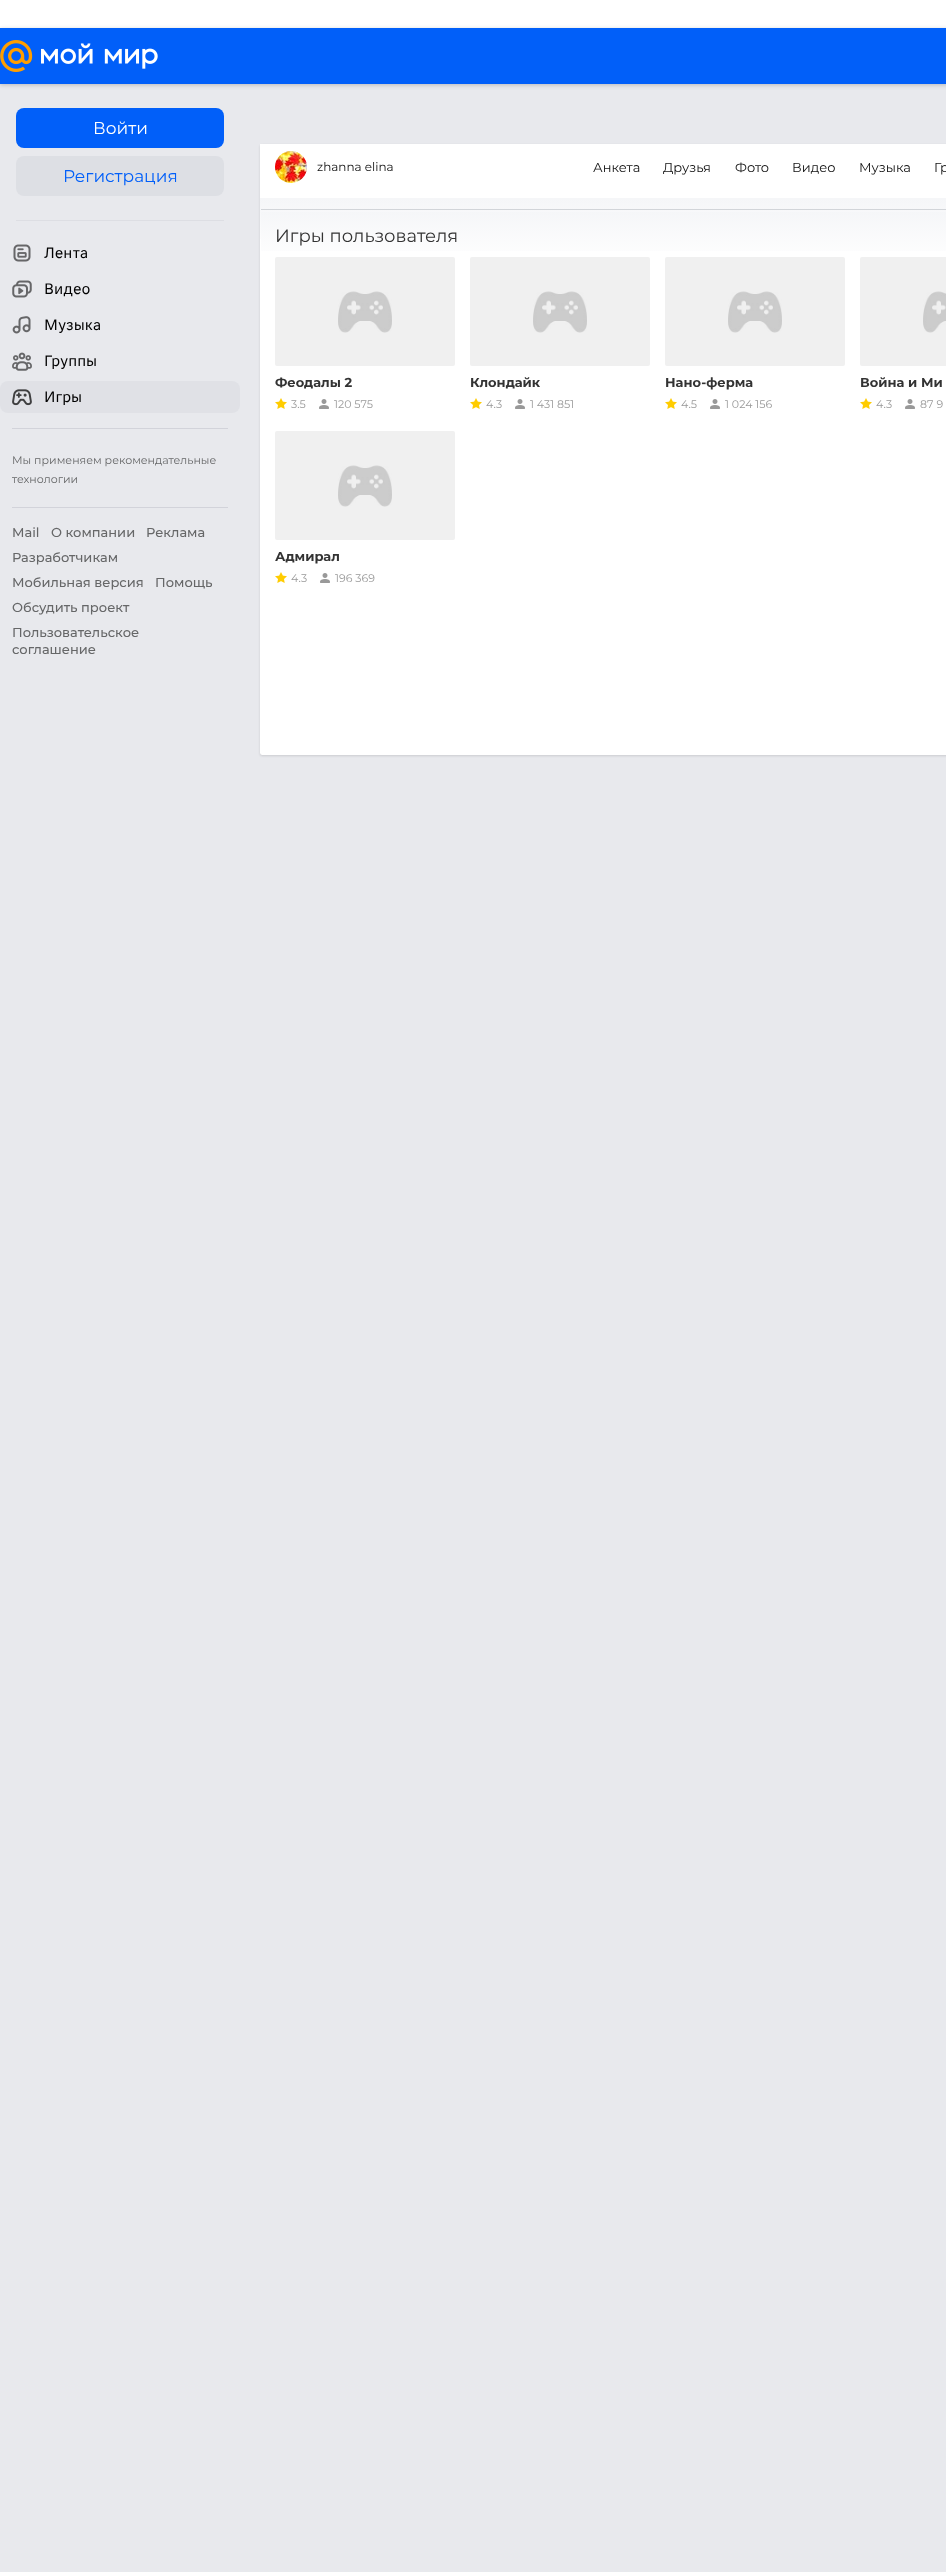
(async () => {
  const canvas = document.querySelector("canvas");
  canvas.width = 946;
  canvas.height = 2572;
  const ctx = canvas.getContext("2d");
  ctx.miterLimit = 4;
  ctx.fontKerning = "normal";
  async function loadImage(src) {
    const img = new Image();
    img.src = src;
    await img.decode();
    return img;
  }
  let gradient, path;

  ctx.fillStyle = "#e8e9ed";
  ctx.fillRect(0, 0, 946, 2572);
  ctx.fillStyle = "#ffffff";
  ctx.fillRect(0, 0, 946, 28);
  ctx.fillStyle = "rgba(0, 0, 0, 0.2)";
  ctx.filter = "blur(2px)";
  ctx.beginPath();
  ctx.rect(0, 29, 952, 56);
  ctx.fill();
  ctx.filter = "none";
  ctx.fillStyle = "#015ff9";
  ctx.fillRect(0, 28, 946, 56);
  ctx.drawImage(await loadImage("img/1.png"), 0, 40, 158, 32);
  ctx.beginPath();
  ctx.roundRect(16, 108, 208, 40, 8);
  ctx.fill();
  ctx.fillStyle = "#dddfe4";
  ctx.beginPath();
  ctx.roundRect(16, 156, 208, 40, 8);
  ctx.fill();
  ctx.fillStyle = "#dddee3";
  ctx.fillRect(16, 220, 208, 1);
  ctx.drawImage(await loadImage("img/2.png"), 13, 244, 18, 18);
  ctx.drawImage(await loadImage("img/3.png"), 12, 280, 20, 18);
  ctx.drawImage(await loadImage("img/4.png"), 12, 316, 19, 18);
  ctx.drawImage(await loadImage("img/5.png"), 12, 352, 20, 19);
  ctx.fillStyle = "#e0e1e6";
  ctx.beginPath();
  ctx.roundRect(0, 381, 240, 32, 8);
  ctx.fill();
  ctx.drawImage(await loadImage("img/6.png"), 12, 389, 20, 17);
  ctx.fillStyle = "#d2d3da";
  ctx.fillRect(12, 428, 216, 1);
  ctx.fillRect(12, 507, 216, 1);
  ctx.fillStyle = "rgba(0, 0, 0, 0.12)";
  ctx.filter = "blur(1px)";
  ctx.beginPath();
  ctx.roundRect(260, 145, 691, 611, 2);
  ctx.fill();
  ctx.filter = "none";
  ctx.fillStyle = "rgba(0, 0, 0, 0.15)";
  ctx.filter = "blur(0.5px)";
  ctx.beginPath();
  ctx.roundRect(260, 144, 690, 611, 2);
  ctx.fill();
  ctx.filter = "none";
  ctx.fillStyle = "#ffffff";
  ctx.beginPath();
  ctx.roundRect(260, 144, 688, 611, 2);
  ctx.fill();
  path = new Path2D("M260 144H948V188C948 189 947 190 946 190H262C261 190 260 189 260 188Z");
  ctx.fill(path);
  ctx.fillStyle = "#f0f0f0";
  ctx.beginPath();
  ctx.arc(291, 167, 16, 0, Math.PI * 2);
  ctx.fill();
  ctx.drawImage(await loadImage("img/7.png"), 275, 151, 32, 32);
  gradient = ctx.createLinearGradient(663, 198, 663, 253);
  gradient.addColorStop(0, "#f5f6f8");
  gradient.addColorStop(1, "#ffffff");
  ctx.fillStyle = gradient;
  ctx.fillRect(260, 198, 686, 41);
  gradient = ctx.createLinearGradient(663, 210, 663, 265);
  gradient.addColorStop(0, "#f5f6f8");
  gradient.addColorStop(1, "#ffffff");
  ctx.fillStyle = gradient;
  ctx.fillRect(261, 212, 685, 39);
  ctx.fillStyle = "#d2d5d9";
  ctx.fillRect(261, 209, 685, 1);
  ctx.fillStyle = "#f0f0f0";
  ctx.beginPath();
  ctx.roundRect(275, 257, 180, 109, 2);
  ctx.fill();
  ctx.drawImage(await loadImage("img/8.png"), 338, 291, 54, 42);
  ctx.drawImage(await loadImage("img/9.png"), 275, 398, 12, 11);
  ctx.drawImage(await loadImage("img/10.png"), 319, 399, 10, 10);
  ctx.beginPath();
  ctx.roundRect(470, 257, 180, 109, 2);
  ctx.fill();
  ctx.drawImage(await loadImage("img/8.png"), 533, 291, 54, 42);
  ctx.drawImage(await loadImage("img/9.png"), 470, 398, 12, 11);
  ctx.drawImage(await loadImage("img/10.png"), 515, 399, 10, 10);
  ctx.beginPath();
  ctx.roundRect(665, 257, 180, 109, 2);
  ctx.fill();
  ctx.drawImage(await loadImage("img/8.png"), 728, 291, 54, 42);
  ctx.drawImage(await loadImage("img/9.png"), 665, 398, 12, 11);
  ctx.drawImage(await loadImage("img/10.png"), 710, 399, 10, 10);
  ctx.beginPath();
  ctx.roundRect(860, 257, 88, 109, 2);
  ctx.fill();
  ctx.drawImage(await loadImage("img/11.png"), 923, 291, 23, 42);
  ctx.drawImage(await loadImage("img/9.png"), 860, 398, 12, 11);
  ctx.drawImage(await loadImage("img/10.png"), 905, 399, 10, 10);
  ctx.beginPath();
  ctx.roundRect(275, 431, 180, 109, 2);
  ctx.fill();
  ctx.drawImage(await loadImage("img/8.png"), 338, 465, 54, 42);
  ctx.drawImage(await loadImage("img/9.png"), 275, 572, 12, 11);
  ctx.drawImage(await loadImage("img/10.png"), 320, 573, 10, 10);
  ctx.font = "17px Montserrat";
  ctx.fillStyle = "#ffffff";
  ctx.fillText("Войти", 93, 134);
  ctx.fillStyle = "#015ff9";
  ctx.fillText("Регистрация", 63, 182);
  ctx.font = "15px 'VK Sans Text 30'";
  ctx.fillStyle = "#000000";
  for (const [text, x, y] of [
    ["Лента", 44, 258],
    ["Видео", 44, 294],
    ["Музыка", 44, 330],
    ["Группы", 44, 366],
    ["Игры", 44, 402],
  ]) {
    ctx.fillText(text, x, y);
  }
  ctx.font = "11px Montserrat";
  ctx.fillStyle = "#666768";
  ctx.fillText("Мы применяем рекомендательные", 12, 464);
  ctx.fillText("технологии", 12, 483);
  ctx.font = "500 13px Montserrat";
  for (const [text, x, y] of [
    ["Mail", 12, 537],
    ["О компании", 51, 537],
    ["Реклама", 146, 537],
    ["Разработчикам", 12, 562],
    ["Мобильная версия", 12, 587],
    ["Помощь", 155, 587],
    ["Обсудить проект", 12, 612],
    ["Пользовательское", 12, 637],
    ["соглашение", 12, 654],
  ]) {
    ctx.fillText(text, x, y);
  }
  ctx.font = "12px Montserrat";
  ctx.fillStyle = "#111111";
  ctx.fillText("zhanna elina", 317, 171);
  ctx.font = "13px Montserrat";
  for (const [text, x, y] of [
    ["Анкета", 593, 172],
    ["Друзья", 663, 172],
    ["Фото", 735, 172],
    ["Видео", 792, 172],
    ["Музыка", 859, 172],
    ["Гр", 934, 172],
  ]) {
    ctx.fillText(text, x, y);
  }
  ctx.font = "18px Montserrat";
  ctx.fillStyle = "#333333";
  ctx.fillText("Игры пользователя", 275, 242);
  ctx.font = "bold 13px Montserrat";
  ctx.fillText("Феодалы 2", 275, 387);
  ctx.font = "11px Montserrat";
  ctx.fillStyle = "#999999";
  ctx.fillText("3.5", 291, 408);
  ctx.fillText("120 575", 334, 408);
  ctx.font = "bold 13px Montserrat";
  ctx.fillStyle = "#333333";
  ctx.fillText("Клондайк", 470, 387);
  ctx.font = "11px Montserrat";
  ctx.fillStyle = "#999999";
  ctx.fillText("4.3", 486, 408);
  ctx.fillText("1 431 851", 530, 408);
  ctx.font = "bold 13px Montserrat";
  ctx.fillStyle = "#333333";
  ctx.fillText("Нано-ферма", 665, 387);
  ctx.font = "11px Montserrat";
  ctx.fillStyle = "#999999";
  ctx.fillText("4.5", 681, 408);
  ctx.fillText("1 024 156", 725, 408);
  ctx.font = "bold 13px Montserrat";
  ctx.fillStyle = "#333333";
  ctx.fillText("Война и Ми", 860, 387);
  ctx.font = "11px Montserrat";
  ctx.fillStyle = "#999999";
  ctx.fillText("4.3", 876, 408);
  ctx.fillText("87 9", 920, 408);
  ctx.font = "bold 13px Montserrat";
  ctx.fillStyle = "#333333";
  ctx.fillText("Адмирал", 275, 561);
  ctx.font = "11px Montserrat";
  ctx.fillStyle = "#999999";
  ctx.fillText("4.3", 291, 582);
  ctx.fillText("196 369", 335, 582);
})();
